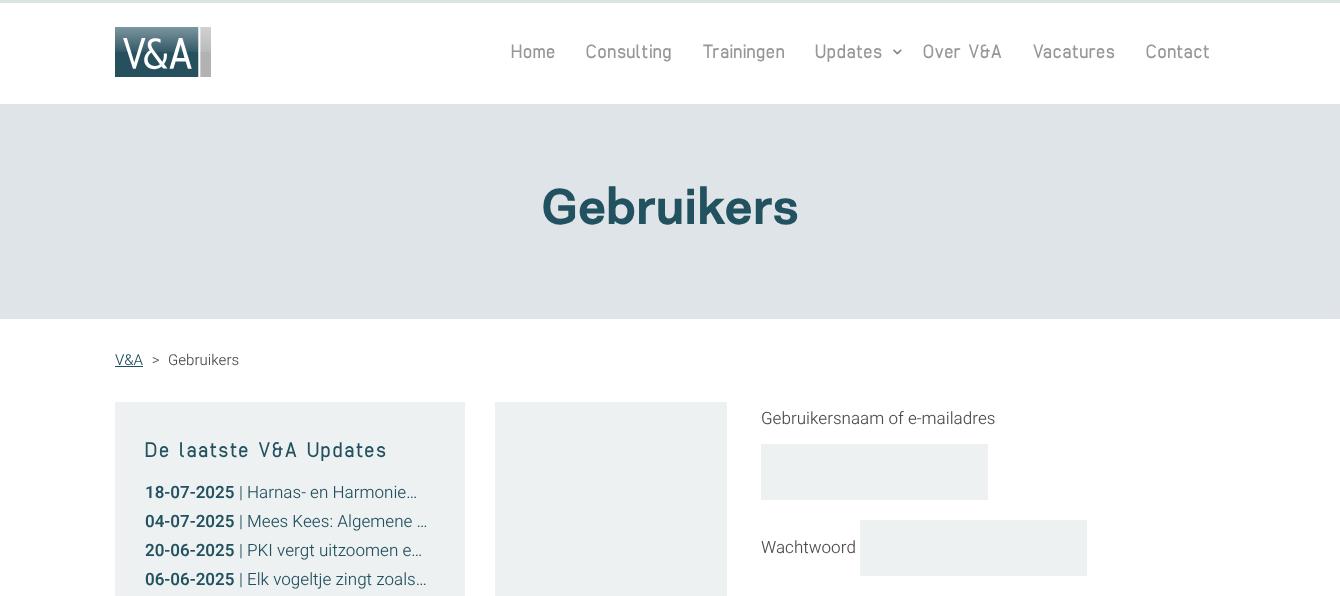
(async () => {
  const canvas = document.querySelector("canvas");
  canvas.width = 1340;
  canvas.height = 596;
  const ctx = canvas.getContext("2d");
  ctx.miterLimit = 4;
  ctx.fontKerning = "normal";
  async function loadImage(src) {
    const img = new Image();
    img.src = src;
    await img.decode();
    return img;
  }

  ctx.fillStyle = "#ffffff";
  ctx.fillRect(0, 0, 1340, 596);
  ctx.fillStyle = "#dce3e5";
  ctx.fillRect(0, 0, 1340, 3);
  ctx.drawImage(await loadImage("img/1.png"), 115, 27, 96, 50);
  ctx.drawImage(await loadImage("img/2.png"), 893, 49, 9, 6);
  for (const [x, y, w, h, color] of [
    [0, 104, 1340, 215, "#dee4e7"],
    [115, 366, 28, 1, "#22515f"],
    [115, 402, 350, 194, "#eef1f2"],
    [495, 402, 232, 194, "#eef1f2"],
    [761, 444, 227, 56, "#eef1f2"],
    [860, 520, 227, 56, "#eef1f2"],
  ]) {
    ctx.fillStyle = color;
    ctx.fillRect(x, y, w, h);
  }
  ctx.letterSpacing = "1px";
  ctx.font = "20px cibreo";
  ctx.fillStyle = "#979797";
  for (const [text, x, y] of [
    ["Home", 511, 58],
    ["Consulting", 586, 58],
    ["Trainingen", 703, 58],
    ["Updates", 815, 58],
    ["Over V&A", 923, 58],
    ["Vacatures", 1033, 58],
    ["Contact", 1146, 58],
  ]) {
    ctx.fillText(text, x, y);
  }
  ctx.letterSpacing = "0px";
  ctx.font = "bold 50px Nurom";
  ctx.fillStyle = "#22515f";
  ctx.fillText("Gebruikers", 541, 224);
  ctx.font = "300 15px Heebo";
  ctx.fillText("V&A", 115, 365);
  ctx.fillStyle = "#4c4c4c";
  ctx.fillText(">", 152, 365);
  ctx.fillText("Gebruikers", 168, 365);
  ctx.letterSpacing = "2px";
  ctx.font = "22px cibreo";
  ctx.fillStyle = "#22515f";
  ctx.fillText("De laatste V&A Updates", 145, 457);
  ctx.letterSpacing = "0px";
  ctx.font = "600 17px Heebo";
  ctx.fillText("18-07-2025", 145, 498);
  ctx.font = "300 17px Heebo";
  ctx.fillText("| Harnas- en Harmonie…", 239, 498);
  ctx.font = "600 17px Heebo";
  ctx.fillText("04-07-2025", 145, 527);
  ctx.font = "300 17px Heebo";
  ctx.fillText("| Mees Kees: Algemene …", 239, 527);
  ctx.font = "600 17px Heebo";
  ctx.fillText("20-06-2025", 145, 556);
  ctx.font = "300 17px Heebo";
  ctx.fillText("| PKI vergt uitzoomen e…", 239, 556);
  ctx.font = "600 17px Heebo";
  ctx.fillText("06-06-2025", 145, 585);
  ctx.font = "300 17px Heebo";
  ctx.fillText("| Elk vogeltje zingt zoals…", 239, 585);
  ctx.fillStyle = "#4c4c4c";
  ctx.fillText("Gebruikersnaam of e-mailadres", 761, 424);
  ctx.fillText("Wachtwoord", 761, 553);
})();
